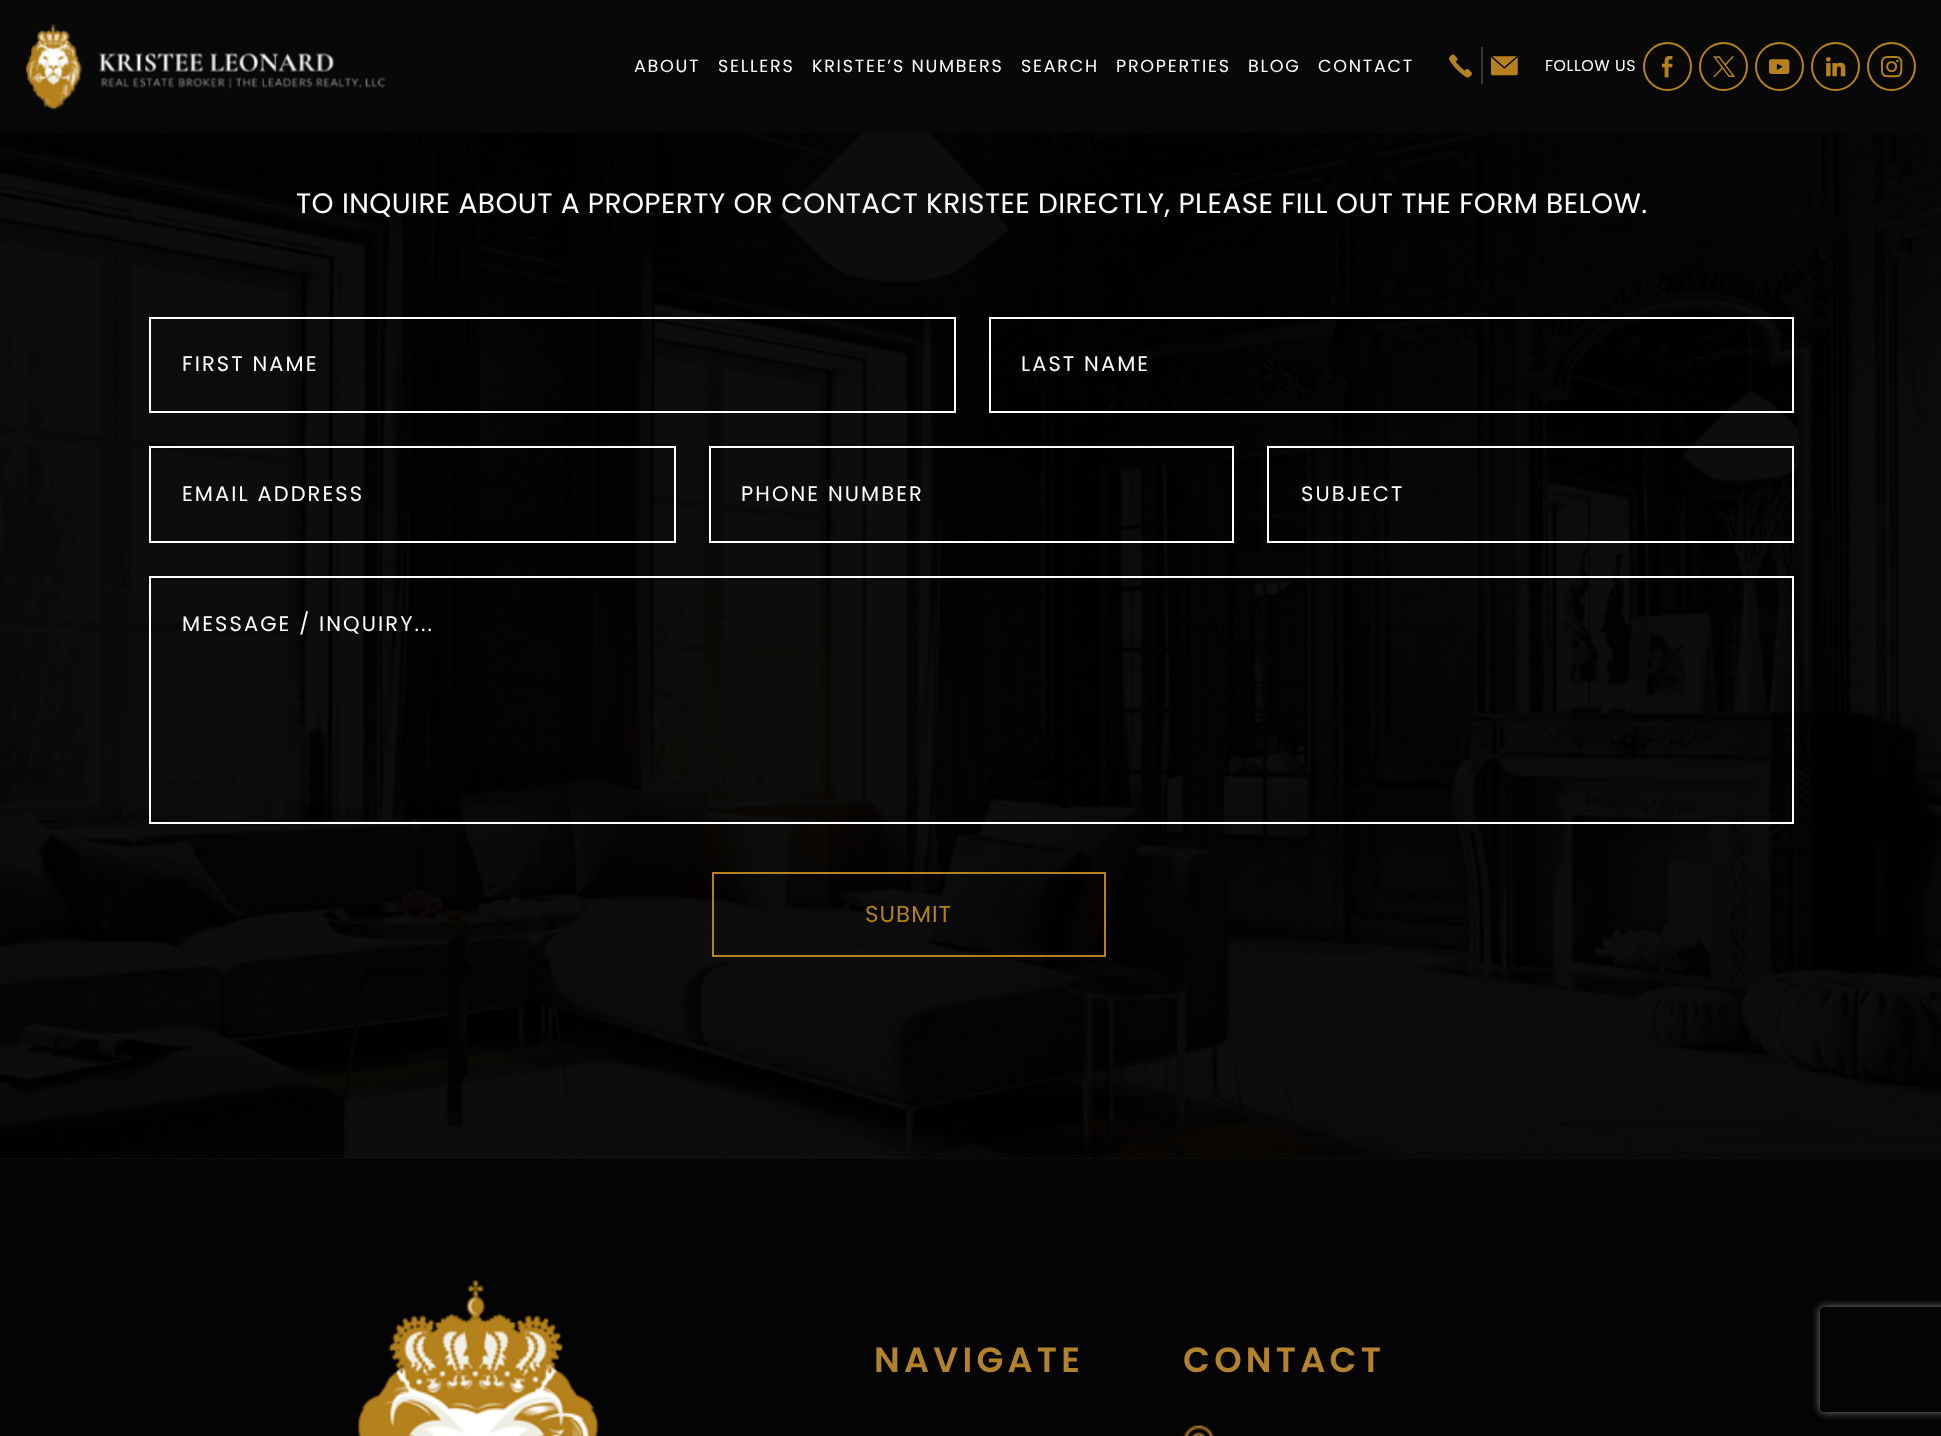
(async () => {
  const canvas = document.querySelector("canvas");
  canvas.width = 1941;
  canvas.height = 1436;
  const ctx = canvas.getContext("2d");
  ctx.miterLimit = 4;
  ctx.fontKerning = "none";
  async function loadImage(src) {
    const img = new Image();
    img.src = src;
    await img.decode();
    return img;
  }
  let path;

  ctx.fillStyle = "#0e0e0e";
  ctx.fillRect(0, 0, 1941, 1436);
  ctx.fillStyle = "#080808";
  ctx.fillRect(0, 0, 1941, 133);
  ctx.drawImage(await loadImage("img/1.png"), 26, 24, 360, 86);
  ctx.fillStyle = "#393939";
  ctx.fillRect(1481, 47, 2, 37);
  ctx.beginPath();
  ctx.arc(1667.5, 66.5, 23.5, 0, Math.PI * 2);
  ctx.strokeStyle = "#b5811c";
  ctx.lineWidth = 2;
  ctx.stroke();
  ctx.beginPath();
  ctx.arc(1723.5, 66.5, 23.5, 0, Math.PI * 2);
  ctx.stroke();
  ctx.beginPath();
  ctx.arc(1779.5, 66.5, 23.5, 0, Math.PI * 2);
  ctx.stroke();
  ctx.beginPath();
  ctx.arc(1835.5, 66.5, 23.5, 0, Math.PI * 2);
  ctx.stroke();
  ctx.beginPath();
  ctx.arc(1891.5, 66.5, 23.5, 0, Math.PI * 2);
  ctx.stroke();
  ctx.drawImage(await loadImage("img/2.png"), 0, 133, 1941, 1025);
  ctx.strokeStyle = "#ffffff";
  ctx.strokeRect(150, 318, 805, 94);
  ctx.strokeRect(990, 318, 803, 94);
  ctx.strokeRect(150, 447, 525, 95);
  ctx.strokeRect(710, 447, 523, 95);
  ctx.strokeRect(1268, 447, 525, 95);
  ctx.strokeRect(150, 577, 1643, 246);
  ctx.strokeStyle = "#b5811c";
  ctx.strokeRect(713, 873, 392, 83);
  ctx.fillStyle = "#040404";
  ctx.fillRect(0, 1159, 1941, 277);
  ctx.drawImage(await loadImage("img/3.png"), 357, 1280, 242, 156);
  ctx.drawImage(await loadImage("img/4.png"), 1183, 1425, 32, 11);
  ctx.save();
  path = new Path2D("M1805 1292H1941V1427H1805ZM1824 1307H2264C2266 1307 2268 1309 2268 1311V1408C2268 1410 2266 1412 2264 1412H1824C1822 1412 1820 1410 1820 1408V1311C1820 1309 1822 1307 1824 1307Z");
  ctx.clip(path, "evenodd");
  ctx.fillStyle = "#808080";
  ctx.filter = "blur(4.5px)";
  ctx.beginPath();
  ctx.roundRect(1820, 1307, 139, 105, 4);
  ctx.fill();
  ctx.filter = "none";
  ctx.restore();
  ctx.letterSpacing = "1.75px";
  ctx.font = "17.5px Poppins";
  ctx.fillStyle = "#ffffff";
  for (const [text, x, y] of [
    ["ABOUT", 634, 72],
    ["SELLERS", 718, 72],
    ["KRISTEE’S NUMBERS", 812, 72],
    ["SEARCH", 1021, 72],
    ["PROPERTIES", 1116, 72],
    ["BLOG", 1248, 72],
    ["CONTACT", 1318, 72],
  ]) {
    ctx.fillText(text, x, y);
  }
  ctx.letterSpacing = "0px";
  ctx.font = "23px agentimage";
  ctx.fillStyle = "#b5811c";
  ctx.fillText("򰁩", 1449, 76);
  ctx.font = "19px agentimage";
  ctx.fillText("򰄡", 1491, 74);
  ctx.letterSpacing = "0.6px";
  ctx.font = "15.75px Poppins";
  ctx.fillStyle = "#ffffff";
  ctx.fillText("FOLLOW US", 1545, 71);
  ctx.letterSpacing = "0px";
  ctx.font = "26px agentimage";
  ctx.fillStyle = "#b5811c";
  for (const [text, x, y] of [
    ["򰄔", 1662, 78],
    ["򰄀", 1713, 78],
    ["򰂖", 1769, 78],
    ["򰄅", 1826, 78],
    ["򰄆", 1881, 78],
  ]) {
    ctx.fillText(text, x, y);
  }
  ctx.letterSpacing = "0.42px";
  ctx.font = "28px Poppins";
  ctx.fillStyle = "#ffffff";
  ctx.fillText("TO INQUIRE ABOUT A PROPERTY OR CONTACT KRISTEE DIRECTLY, PLEASE FILL OUT THE FORM BELOW.", 296, 213);
  ctx.letterSpacing = "2.1px";
  ctx.font = "21px Poppins";
  for (const [text, x, y] of [
    ["FIRST NAME", 182, 371],
    ["LAST NAME", 1021, 371],
    ["EMAIL ADDRESS", 182, 501],
    ["PHONE NUMBER", 741, 501],
    ["SUBJECT", 1301, 501],
    ["MESSAGE / INQUIRY...", 182, 631],
  ]) {
    ctx.fillText(text, x, y);
  }
  ctx.letterSpacing = "1px";
  ctx.font = "23px Poppins";
  ctx.fillStyle = "#b5811c";
  ctx.fillText("SUBMIT", 865, 922);
  ctx.letterSpacing = "4.25px";
  ctx.font = "600 35px Poppins";
  ctx.fillStyle = "#b3822c";
  ctx.fillText("NAVIGATE", 874, 1372);
  ctx.fillText("CONTACT", 1183, 1372);
})();
